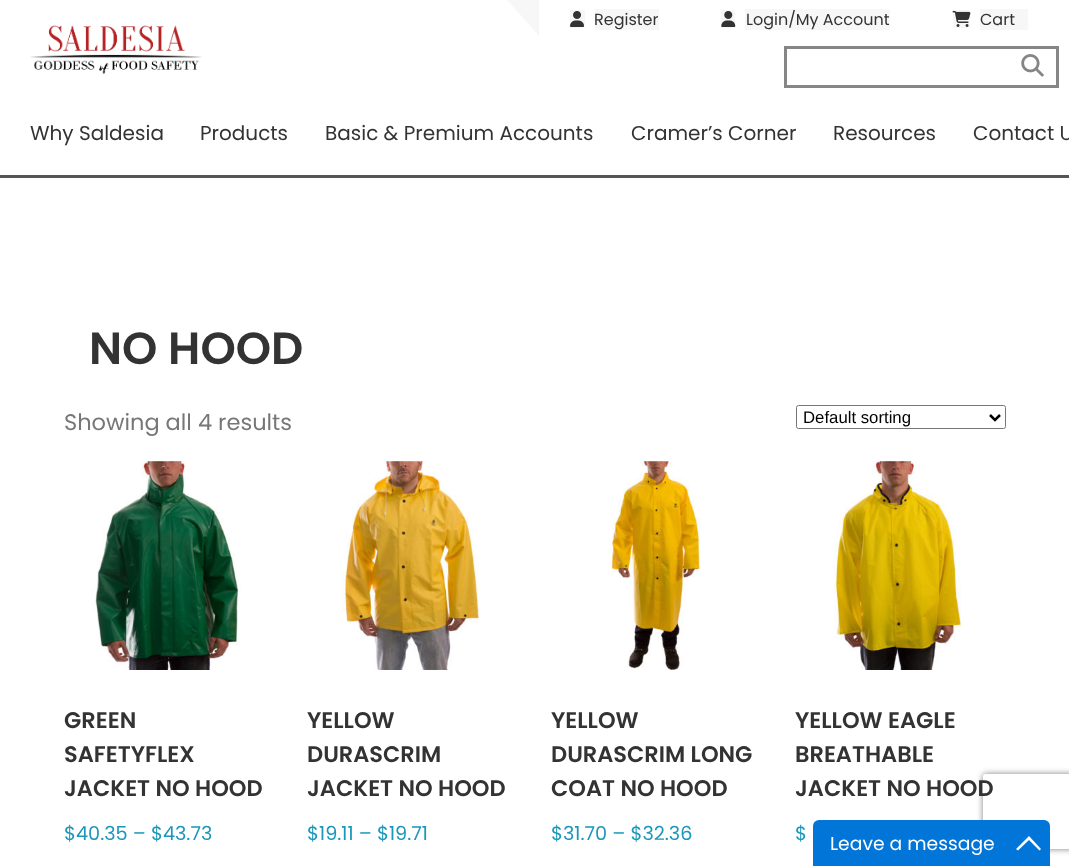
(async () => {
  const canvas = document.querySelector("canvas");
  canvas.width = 1069;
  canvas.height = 866;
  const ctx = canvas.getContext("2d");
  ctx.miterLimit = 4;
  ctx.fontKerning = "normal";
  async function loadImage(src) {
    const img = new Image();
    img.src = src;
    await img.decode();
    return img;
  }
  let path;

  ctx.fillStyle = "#ffffff";
  ctx.fillRect(0, 0, 1069, 866);
  ctx.fillStyle = "#555555";
  ctx.fillRect(0, 175, 1069, 3);
  ctx.fillStyle = "#f7f7f7";
  path = new Path2D("M539 0V36L507.5 0Z");
  ctx.fill(path);
  ctx.fillRect(570, 10, 15, 18);
  ctx.drawImage(await loadImage("img/1.png"), 570, 11, 14, 16);
  ctx.fillRect(595, 9, 64, 21);
  ctx.fillRect(721, 10, 14, 18);
  ctx.drawImage(await loadImage("img/2.png"), 721, 11, 15, 16);
  ctx.fillRect(745, 9, 145, 21);
  ctx.fillRect(953, 10, 17, 18);
  ctx.drawImage(await loadImage("img/3.png"), 952, 10, 19, 17);
  ctx.fillRect(980, 9, 48, 21);
  ctx.strokeStyle = "#868686";
  ctx.lineWidth = 3;
  ctx.strokeRect(785.5, 47.5, 272, 39);
  ctx.drawImage(await loadImage("img/4.png"), 1021, 54, 23, 23);
  ctx.drawImage(await loadImage("img/5.png"), 30, 25, 172, 49);
  ctx.beginPath();
  ctx.roundRect(796.5, 405.5, 209, 23, 2);
  ctx.strokeStyle = "#767676";
  ctx.lineWidth = 1;
  ctx.stroke();
  path = new Path2D("M990 415L995 420L1000 415");
  ctx.strokeStyle = "#000000";
  ctx.lineWidth = 2.5;
  ctx.stroke(path);
  ctx.drawImage(await loadImage("img/6.png"), 92, 461, 149, 209);
  ctx.drawImage(await loadImage("img/7.png"), 341, 461, 138, 209);
  ctx.drawImage(await loadImage("img/8.png"), 611, 461, 90, 209);
  ctx.drawImage(await loadImage("img/9.png"), 834, 461, 127, 209);
  ctx.save();
  path = new Path2D("M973 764H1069V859H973ZM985.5 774H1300.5C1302 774 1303 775 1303 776.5V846.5C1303 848 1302 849 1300.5 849H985.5C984 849 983 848 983 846.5V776.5C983 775 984 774 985.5 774Z");
  ctx.clip(path, "evenodd");
  ctx.fillStyle = "#808080";
  ctx.filter = "blur(3px)";
  ctx.beginPath();
  ctx.roundRect(983, 774, 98, 75, 2.5);
  ctx.fill();
  ctx.filter = "none";
  ctx.restore();
  ctx.fillStyle = "#0275d8";
  ctx.beginPath();
  ctx.roundRect(813, 820, 237, 46, [6, 6, 0, 0]);
  ctx.fill();
  ctx.fillStyle = "#ffffff";
  path = new Path2D("M1029 836L1041 849L1039.5 850.5L1029 840L1018 850.5L1016 849Z");
  ctx.fill(path);
  ctx.font = "16px Poppins";
  ctx.fillStyle = "#333333";
  for (const [text, x, y] of [
    ["Register", 594, 25],
    ["Login/My Account", 746, 25],
    ["Cart", 980, 25],
  ]) {
    ctx.fillText(text, x, y);
  }
  ctx.font = "20px Poppins";
  for (const [text, x, y] of [
    ["Why Saldesia", 30, 140],
    ["Products", 200, 140],
    ["Basic & Premium Accounts", 325, 140],
    ["Cramer’s Corner", 631, 140],
    ["Resources", 833, 140],
    ["Contact U", 973, 140],
  ]) {
    ctx.fillText(text, x, y);
  }
  ctx.font = "600 45px Poppins";
  ctx.fillText("NO HOOD", 89, 364);
  ctx.font = "22.5px Poppins";
  ctx.fillStyle = "#777777";
  ctx.fillText("Showing all 4 results", 64, 430);
  ctx.font = "16.75px Liberation Sans";
  ctx.fillStyle = "#000000";
  ctx.fillText("Default sorting", 803, 423);
  ctx.font = "600 22.5px Poppins";
  ctx.fillStyle = "#333333";
  for (const [text, x, y] of [
    ["GREEN", 64, 728],
    ["SAFETYFLEX", 64, 762],
    ["JACKET NO HOOD", 64, 796],
  ]) {
    ctx.fillText(text, x, y);
  }
  ctx.font = "19.25px Poppins";
  ctx.fillStyle = "#1a97bb";
  ctx.fillText("$40.35 – $43.73", 64, 840);
  ctx.font = "600 22.5px Poppins";
  ctx.fillStyle = "#333333";
  for (const [text, x, y] of [
    ["YELLOW", 307, 728],
    ["DURASCRIM", 307, 762],
    ["JACKET NO HOOD", 307, 796],
  ]) {
    ctx.fillText(text, x, y);
  }
  ctx.font = "19.25px Poppins";
  ctx.fillStyle = "#1a97bb";
  ctx.fillText("$19.11 – $19.71", 307, 840);
  ctx.font = "600 22.5px Poppins";
  ctx.fillStyle = "#333333";
  for (const [text, x, y] of [
    ["YELLOW", 551, 728],
    ["DURASCRIM LONG", 551, 762],
    ["COAT NO HOOD", 551, 796],
  ]) {
    ctx.fillText(text, x, y);
  }
  ctx.font = "19.25px Poppins";
  ctx.fillStyle = "#1a97bb";
  ctx.fillText("$31.70 – $32.36", 551, 840);
  ctx.font = "600 22.5px Poppins";
  ctx.fillStyle = "#333333";
  for (const [text, x, y] of [
    ["YELLOW EAGLE", 795, 728],
    ["BREATHABLE", 795, 762],
    ["JACKET NO HOOD", 795, 796],
  ]) {
    ctx.fillText(text, x, y);
  }
  ctx.font = "19.25px Poppins";
  ctx.fillStyle = "#1a97bb";
  ctx.fillText("$", 795, 840);
  ctx.font = "18.75px Poppins";
  ctx.fillStyle = "#ffffff";
  ctx.fillText("Leave a message", 830, 850);
})();
